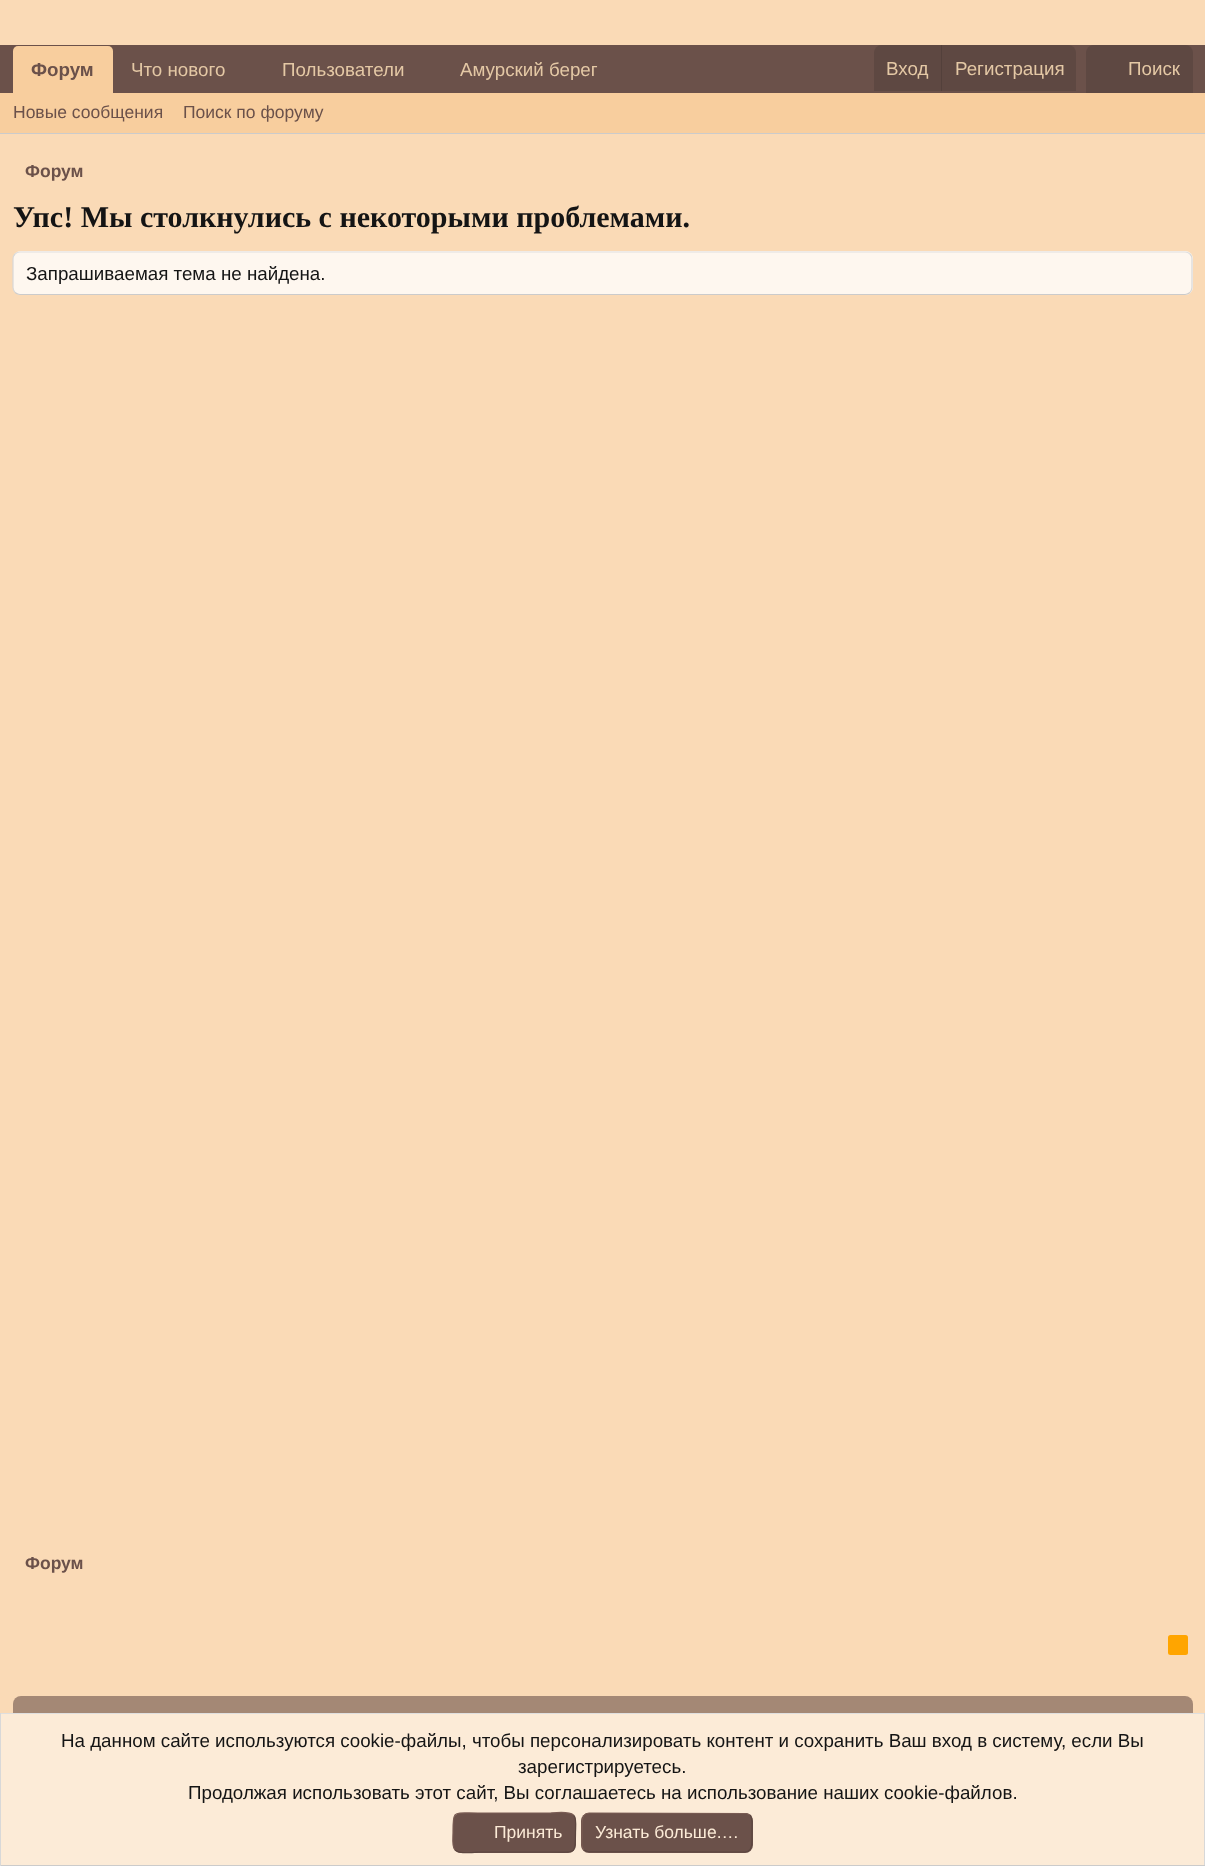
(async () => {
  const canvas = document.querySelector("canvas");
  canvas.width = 1205;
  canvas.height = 1866;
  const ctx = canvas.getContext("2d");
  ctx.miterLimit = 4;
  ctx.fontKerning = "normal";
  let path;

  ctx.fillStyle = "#fadab6";
  ctx.fillRect(0, 0, 1205, 1866);
  ctx.fillStyle = "#6b514a";
  ctx.fillRect(0, 45, 1205, 48);
  ctx.fillStyle = "#f8ce9e";
  ctx.beginPath();
  ctx.roundRect(13, 46, 100, 47, [5, 5, 0, 0]);
  ctx.fill();
  ctx.fillStyle = "#5e4842";
  ctx.beginPath();
  ctx.roundRect(874, 45, 202, 46, [8, 8, 0, 0]);
  ctx.fill();
  ctx.fillStyle = "#53403b";
  ctx.fillRect(941, 45, 1, 46);
  ctx.fillStyle = "#5e4842";
  ctx.beginPath();
  ctx.roundRect(1086, 45, 107, 48, [8, 8, 0, 0]);
  ctx.fill();
  ctx.fillStyle = "#f8ce9e";
  ctx.fillRect(0, 93, 1205, 40);
  ctx.fillStyle = "#cbcbcb";
  ctx.fillRect(0, 133, 1205, 1);
  ctx.fillStyle = "#fef7ef";
  ctx.beginPath();
  ctx.roundRect(13, 251, 1180, 44, 8);
  ctx.fill();
  path = new Path2D("M15 254C16.5 252.5 18 252 20 252H1185C1187 252 1188.5 252.5 1190 254");
  ctx.strokeStyle = "#dfdfdf";
  ctx.lineWidth = 1.2;
  ctx.stroke(path);
  path = new Path2D("M1190 254C1191 255 1192 257 1192 259V287.5C1192 289.5 1191 291 1190 292.5");
  ctx.strokeStyle = "#d8d8d8";
  ctx.stroke(path);
  path = new Path2D("M1190 292.5C1188.5 293.5 1187 294.5 1185 294.5H20C18 294.5 16.5 293.5 15 292.5");
  ctx.strokeStyle = "#cbcbcb";
  ctx.stroke(path);
  path = new Path2D("M15 292.5C14 291 13 289.5 13 287.5V259C13 257 14 255 15 254");
  ctx.strokeStyle = "#d8d8d8";
  ctx.stroke(path);
  ctx.fillStyle = "#ffa500";
  ctx.beginPath();
  ctx.roundRect(1168, 1635, 20, 20, 2.5);
  ctx.fill();
  ctx.fillStyle = "#a48875";
  ctx.beginPath();
  ctx.roundRect(13, 1696, 1180, 145, 8);
  ctx.fill();
  for (const [x, y, w, h, color] of [
    [1, 1714, 1203, 151, "#fcebd7"],
    [0, 1713, 1205, 1, "#dfdfdf"],
    [1204, 1713, 1, 153, "#d8d8d8"],
    [0, 1865, 1205, 1, "#cbcbcb"],
    [0, 1713, 1, 153, "#d8d8d8"],
  ]) {
    ctx.fillStyle = color;
    ctx.fillRect(x, y, w, h);
  }
  ctx.fillStyle = "#6b514a";
  ctx.beginPath();
  ctx.roundRect(453, 1813, 123, 40, 8);
  ctx.fill();
  path = new Path2D("M573.5 1815C577 1818.5 575.5 1828 575.5 1832.5C575.5 1855.5 576 1852 550.5 1852H478C477.5 1852 460 1854.5 455 1850");
  ctx.strokeStyle = "#5c4640";
  ctx.stroke(path);
  path = new Path2D("M455 1850C451.5 1846.5 453 1837 453 1832.5C453 1809.5 452.5 1813 478 1813H550.5C551.5 1813 568.5 1810.5 573.5 1815");
  ctx.strokeStyle = "#7a5c54";
  ctx.stroke(path);
  ctx.beginPath();
  ctx.roundRect(581, 1813, 172, 40, 8);
  ctx.fill();
  path = new Path2D("M750 1815C753 1818.5 752 1824.5 752 1828.5V1841C752 1845.5 751.5 1852 745 1852L587.5 1851.5L584 1850");
  ctx.strokeStyle = "#5c4640";
  ctx.stroke(path);
  path = new Path2D("M584 1850C580.5 1846.5 582 1840.5 582 1836.5V1824C582 1819.5 582.5 1813 589 1813L746.5 1813.5L750 1815");
  ctx.strokeStyle = "#7a5c54";
  ctx.stroke(path);
  ctx.font = "bold 18.75px Liberation Sans";
  ctx.fillText("Форум", 31, 76);
  ctx.font = "18.75px Liberation Sans";
  ctx.fillStyle = "#e4c8a5";
  for (const [text, x, y] of [
    ["Что нового", 131, 76],
    ["Пользователи", 282, 76],
    ["Амурский берег", 460, 76],
    ["Вход", 886, 75],
    ["Регистрация", 955, 75],
    ["Поиск", 1128, 75],
  ]) {
    ctx.fillText(text, x, y);
  }
  ctx.font = "17.5px Liberation Sans";
  ctx.fillStyle = "#6b514a";
  ctx.fillText("Новые сообщения", 13, 118);
  ctx.fillText("Поиск по форуму", 183, 118);
  ctx.font = "bold 17.5px Liberation Sans";
  ctx.fillText("Форум", 25, 177);
  ctx.font = "bold 30px Liberation Serif";
  ctx.fillStyle = "#141414";
  ctx.fillText("Упс! Мы столкнулись с некоторыми проблемами.", 13, 227);
  ctx.font = "18.75px Liberation Sans";
  ctx.fillText("Запрашиваемая тема не найдена.", 26, 280);
  ctx.font = "bold 17.5px Liberation Sans";
  ctx.fillStyle = "#6b514a";
  ctx.fillText("Форум", 25, 1569);
  ctx.font = "18.75px Liberation Sans";
  ctx.fillStyle = "#141414";
  for (const [text, x, y] of [
    ["На данном сайте используются cookie-файлы, чтобы персонализировать контент и сохранить Ваш вход в систему, если Вы", 61, 1747],
    ["зарегистрируетесь.", 518, 1773],
    ["Продолжая использовать этот сайт, Вы соглашаетесь на использование наших cookie-файлов.", 188, 1799],
  ]) {
    ctx.fillText(text, x, y);
  }
  ctx.font = "17.5px Liberation Sans";
  ctx.fillStyle = "#fcebd7";
  ctx.fillText("Принять", 494, 1838);
  ctx.fillText("Узнать больше.…", 595, 1838);
})();
